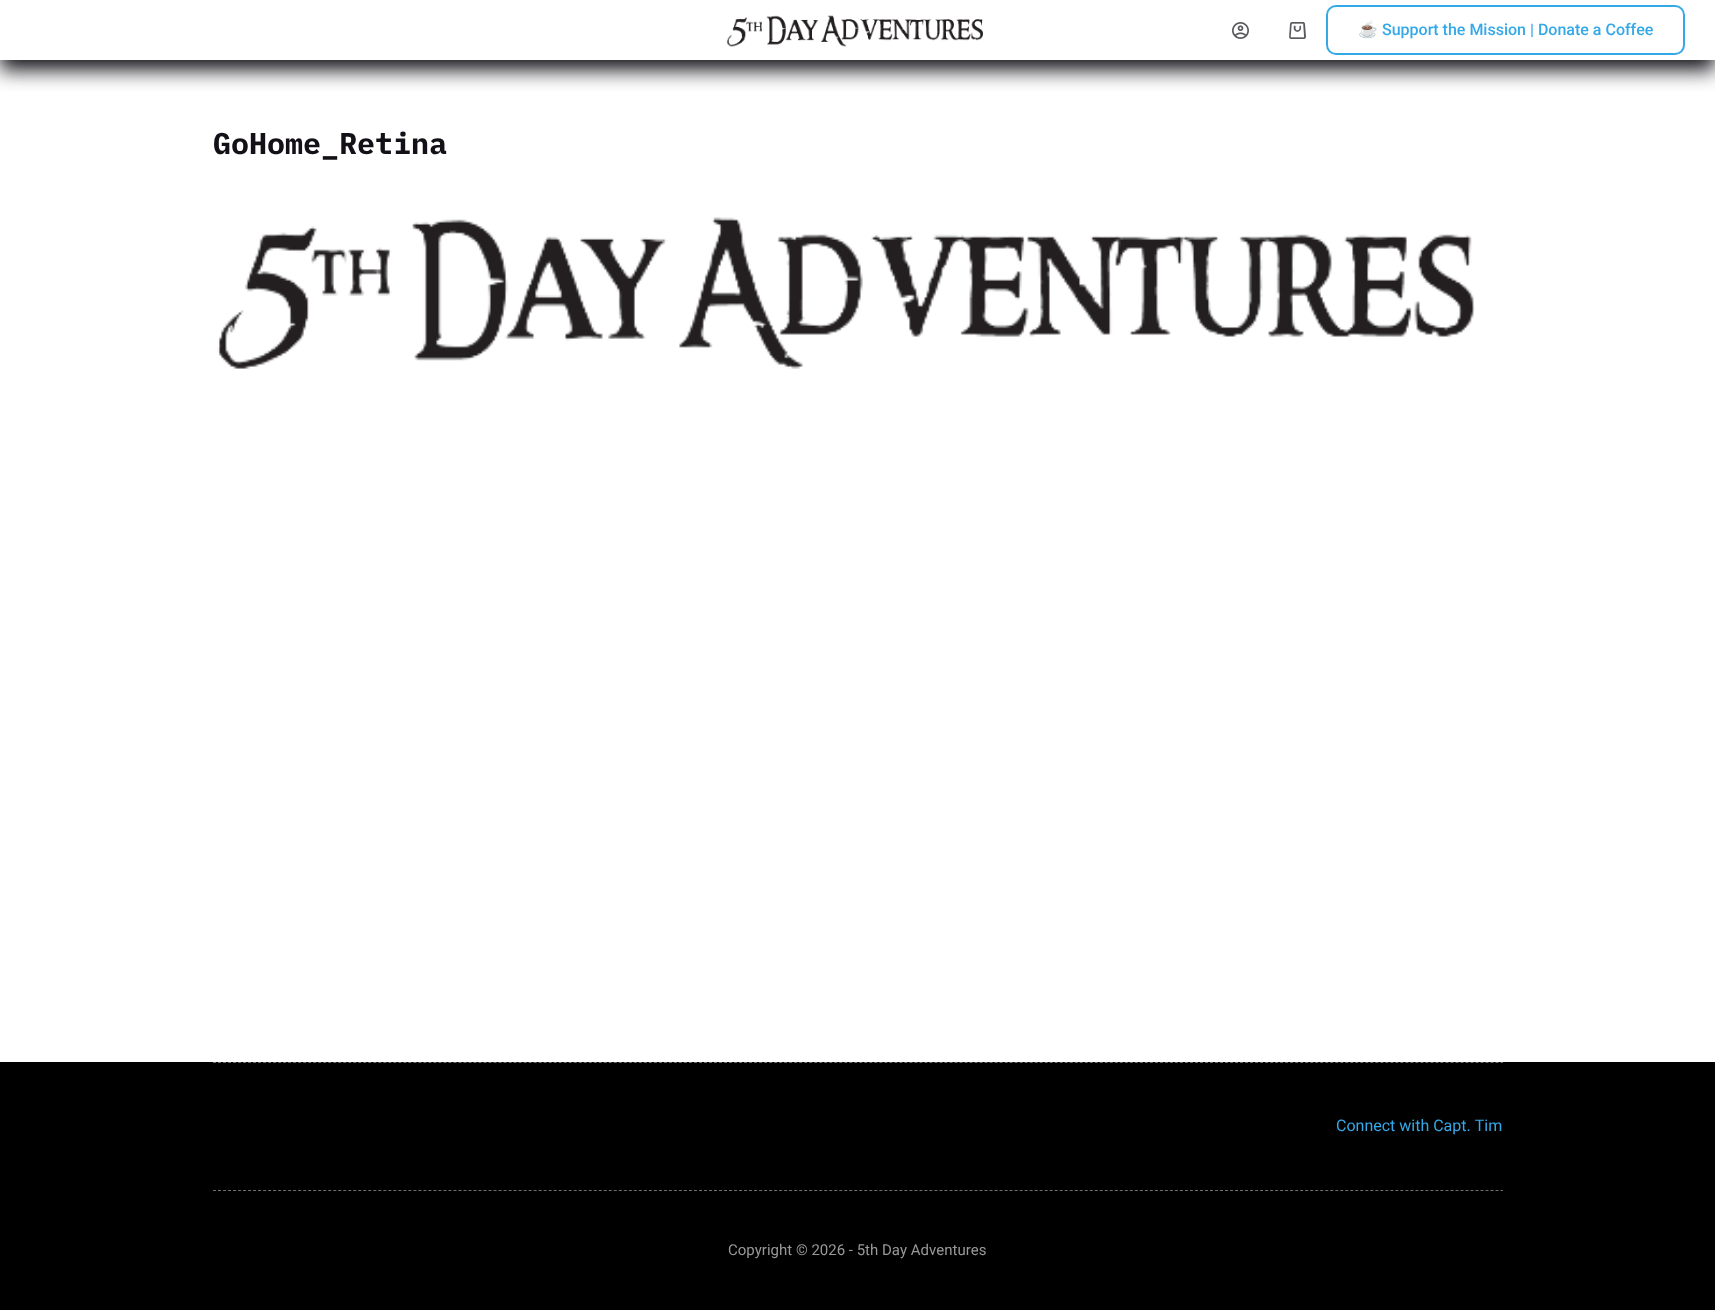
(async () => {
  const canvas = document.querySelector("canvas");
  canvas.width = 1715;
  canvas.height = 1310;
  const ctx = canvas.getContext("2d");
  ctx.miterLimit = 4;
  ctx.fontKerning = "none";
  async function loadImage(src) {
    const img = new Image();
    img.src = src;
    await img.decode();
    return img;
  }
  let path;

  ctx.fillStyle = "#ffffff";
  ctx.fillRect(0, 0, 1715, 1310);
  ctx.save();
  ctx.beginPath();
  ctx.rect(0, 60, 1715, 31);
  ctx.clip();
  ctx.fillStyle = "#131117";
  ctx.filter = "blur(10px)";
  ctx.beginPath();
  ctx.rect(0, 10, 1715, 60);
  ctx.fill();
  ctx.filter = "none";
  ctx.restore();
  ctx.drawImage(await loadImage("img/1.png"), 726, 15, 257, 32);
  ctx.drawImage(await loadImage("img/2.png"), 1232, 22, 17, 17);
  ctx.drawImage(await loadImage("img/3.png"), 1289, 22, 17, 17);
  ctx.beginPath();
  ctx.roundRect(1327, 6, 357, 48, 9);
  ctx.strokeStyle = "#35a9e8";
  ctx.lineWidth = 2;
  ctx.stroke();
  ctx.drawImage(await loadImage("img/4.png"), 217, 217, 1258, 152);
  ctx.fillStyle = "#000000";
  ctx.fillRect(0, 1062, 1715, 248);
  path = new Path2D("M213 1062.5H1503");
  ctx.strokeStyle = "#6f6f6f";
  ctx.lineWidth = 1;
  ctx.setLineDash([3, 2.01]);
  ctx.stroke(path);
  path = new Path2D("M213 1190.5H1503");
  ctx.stroke(path);
  ctx.font = "16px Noto Color Emoji";
  ctx.fillStyle = "#35a9e8";
  ctx.fillText("☕", 1358, 35);
  ctx.font = "500 16px Roboto";
  ctx.fillText("Support the Mission | Donate a Coffee", 1382, 35);
  ctx.font = "bold 30px IBM Plex Mono";
  ctx.fillStyle = "#131117";
  ctx.fillText("GoHome_Retina", 213, 154);
  ctx.font = "16px Roboto";
  ctx.fillStyle = "#35a9e8";
  ctx.fillText("Connect with Capt. Tim", 1336, 1131);
  ctx.font = "15px Roboto";
  ctx.fillStyle = "#989898";
  ctx.fillText("Copyright © 2026 - 5th Day Adventures", 728, 1255);
})();
